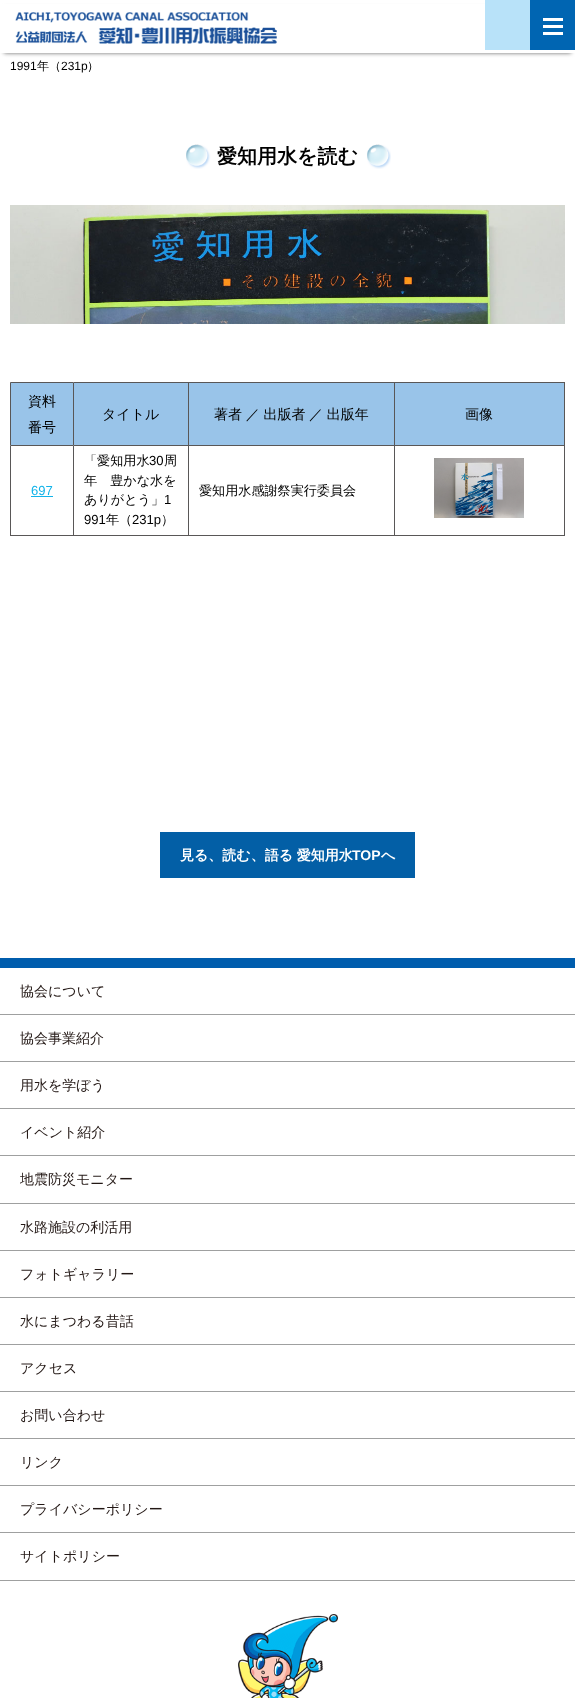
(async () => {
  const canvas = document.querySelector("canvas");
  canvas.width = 575;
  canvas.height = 1698;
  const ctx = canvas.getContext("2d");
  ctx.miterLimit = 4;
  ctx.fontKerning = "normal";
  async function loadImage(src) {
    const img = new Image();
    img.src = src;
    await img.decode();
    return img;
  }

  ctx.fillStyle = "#ffffff";
  ctx.fillRect(0, 0, 575, 1698);
  ctx.fillStyle = "#666666";
  ctx.filter = "blur(2px)";
  ctx.beginPath();
  ctx.rect(4, 8, 567, 45);
  ctx.fill();
  ctx.filter = "none";
  for (const [x, y, w, h, color] of [
    [0, 4, 575, 49, "#ffffff"],
    [485, 0, 45, 50, "#b8e2f9"],
    [530, 0, 45, 50, "#0065b2"],
    [543, 25, 20, 3, "#ffffff"],
    [543, 18, 20, 3, "#ffffff"],
    [543, 32, 20, 3, "#ffffff"],
  ]) {
    ctx.fillStyle = color;
    ctx.fillRect(x, y, w, h);
  }
  ctx.drawImage(await loadImage("img/1.png"), 15, 12, 262, 32);
  ctx.drawImage(await loadImage("img/2.png"), 186, 144, 205, 25);
  ctx.drawImage(await loadImage("img/3.png"), 10, 205, 555, 119);
  ctx.fillStyle = "#99c4e9";
  ctx.beginPath();
  ctx.rect(10.5, 382.5, 63, 63);
  ctx.fill();
  ctx.strokeStyle = "#595757";
  ctx.stroke();
  for (const [x, y, w, h, color] of [
    [74, 383, 114, 62, "#99c4e9"],
    [74, 382, 491, 1, "#595757"],
    [188, 382, 1, 64, "#595757"],
    [74, 445, 115, 1, "#595757"],
    [189, 383, 205, 62, "#99c4e9"],
    [394, 382, 1, 64, "#595757"],
    [189, 445, 206, 1, "#595757"],
    [395, 383, 169, 62, "#99c4e9"],
    [564, 382, 1, 64, "#595757"],
    [395, 445, 170, 1, "#595757"],
    [73, 446, 1, 90, "#595757"],
    [10, 535, 64, 1, "#595757"],
    [10, 446, 1, 90, "#595757"],
    [31, 496, 22, 1, "#11b3e9"],
    [188, 446, 1, 90, "#595757"],
    [74, 535, 115, 1, "#595757"],
    [394, 446, 1, 90, "#595757"],
    [189, 535, 206, 1, "#595757"],
    [564, 446, 1, 90, "#595757"],
    [395, 535, 170, 1, "#595757"],
  ]) {
    ctx.fillStyle = color;
    ctx.fillRect(x, y, w, h);
  }
  ctx.drawImage(await loadImage("img/4.png"), 434, 458, 90, 60);
  ctx.fillStyle = "#035fa6";
  ctx.fillRect(160, 832, 255, 46);
  ctx.fillStyle = "#005dad";
  ctx.fillRect(0, 958, 575, 10);
  ctx.drawImage(await loadImage("img/5.png"), 238, 1614, 100, 84);
  for (const [x, y, w, h, color] of [
    [0, 1014, 575, 1, "#9fa0a0"],
    [0, 1061, 575, 1, "#9fa0a0"],
    [0, 1108, 575, 1, "#9fa0a0"],
    [0, 1155, 575, 1, "#9fa0a0"],
    [0, 1203, 575, 1, "#9fa0a0"],
    [0, 1250, 575, 1, "#9fa0a0"],
    [0, 1297, 575, 1, "#9fa0a0"],
    [0, 1344, 575, 1, "#9fa0a0"],
    [0, 1391, 575, 1, "#9fa0a0"],
    [0, 1438, 575, 1, "#9fa0a0"],
    [0, 1485, 575, 1, "#9fa0a0"],
    [0, 1532, 575, 1, "#9fa0a0"],
    [0, 1580, 575, 1, "#9fa0a0"],
  ]) {
    ctx.fillStyle = color;
    ctx.fillRect(x, y, w, h);
  }
  ctx.font = "12px Liberation Sans";
  ctx.fillStyle = "#000000";
  ctx.fillText("1991", 10, 70);
  ctx.font = "500 12px WenQuanYi Zen Hei";
  ctx.fillText("年（", 37, 70);
  ctx.font = "12px Liberation Sans";
  ctx.fillText("231p", 61, 70);
  ctx.font = "500 12px WenQuanYi Zen Hei";
  ctx.fillText("）", 87, 70);
  ctx.font = "bold 20px WenQuanYi Zen Hei";
  ctx.fillText("愛知用水を読む", 217, 163);
  ctx.font = "500 14px WenQuanYi Zen Hei";
  for (const [text, x, y] of [
    ["資料", 28, 406],
    ["番号", 28, 432],
    ["タイトル", 102, 419],
  ]) {
    ctx.fillText(text, x, y);
  }
  ctx.wordSpacing = "-0.5px";
  ctx.fillText("著者 ／ 出版者 ／ 出版年", 214, 419);
  ctx.wordSpacing = "0px";
  ctx.fillText("画像", 465, 419);
  ctx.font = "13.1px Liberation Sans";
  ctx.fillStyle = "#11b3e9";
  ctx.fillText("697", 31, 495);
  ctx.font = "500 13.1px WenQuanYi Zen Hei";
  ctx.fillStyle = "#000000";
  ctx.fillText("「愛知用水", 84, 465);
  ctx.font = "13.1px Liberation Sans";
  ctx.fillText("30", 149, 465);
  ctx.font = "500 13.1px WenQuanYi Zen Hei";
  for (const [text, x, y] of [
    ["周", 164, 465],
    ["年　豊かな水を", 84, 485],
    ["ありがとう」", 84, 504],
  ]) {
    ctx.fillText(text, x, y);
  }
  ctx.font = "13.1px Liberation Sans";
  ctx.fillText("1", 164, 504);
  ctx.fillText("991", 84, 524);
  ctx.font = "500 13.1px WenQuanYi Zen Hei";
  ctx.fillText("年（", 106, 524);
  ctx.font = "13.1px Liberation Sans";
  ctx.fillText("231p", 132, 524);
  ctx.font = "500 13.1px WenQuanYi Zen Hei";
  ctx.fillText("）", 161, 524);
  ctx.fillText("愛知用水感謝祭実行委員会", 199, 495);
  ctx.wordSpacing = "-0.5px";
  ctx.font = "bold 14px WenQuanYi Zen Hei";
  ctx.fillStyle = "#ffffff";
  ctx.fillText("見る、読む、語る 愛知用水", 180, 860);
  ctx.wordSpacing = "0px";
  ctx.font = "bold 14px Liberation Sans";
  ctx.fillText("TOP", 352, 860);
  ctx.font = "bold 14px WenQuanYi Zen Hei";
  ctx.fillText("へ", 381, 860);
  ctx.font = "500 14px WenQuanYi Zen Hei";
  ctx.fillStyle = "#231815";
  for (const [text, x, y] of [
    ["協会について", 20, 996],
    ["協会事業紹介", 20, 1043],
    ["用水を学ぼう", 20, 1090],
    ["イベント紹介", 20, 1137],
    ["地震防災モニター", 20, 1184],
    ["水路施設の利活用", 20, 1232],
    ["フォトギャラリー", 20, 1279],
    ["水にまつわる昔話", 20, 1326],
    ["アクセス", 20, 1373],
    ["お問い合わせ", 20, 1420],
    ["リンク", 20, 1467],
    ["プライバシーポリシー", 20, 1514],
    ["サイトポリシー", 20, 1561],
  ]) {
    ctx.fillText(text, x, y);
  }
})();
